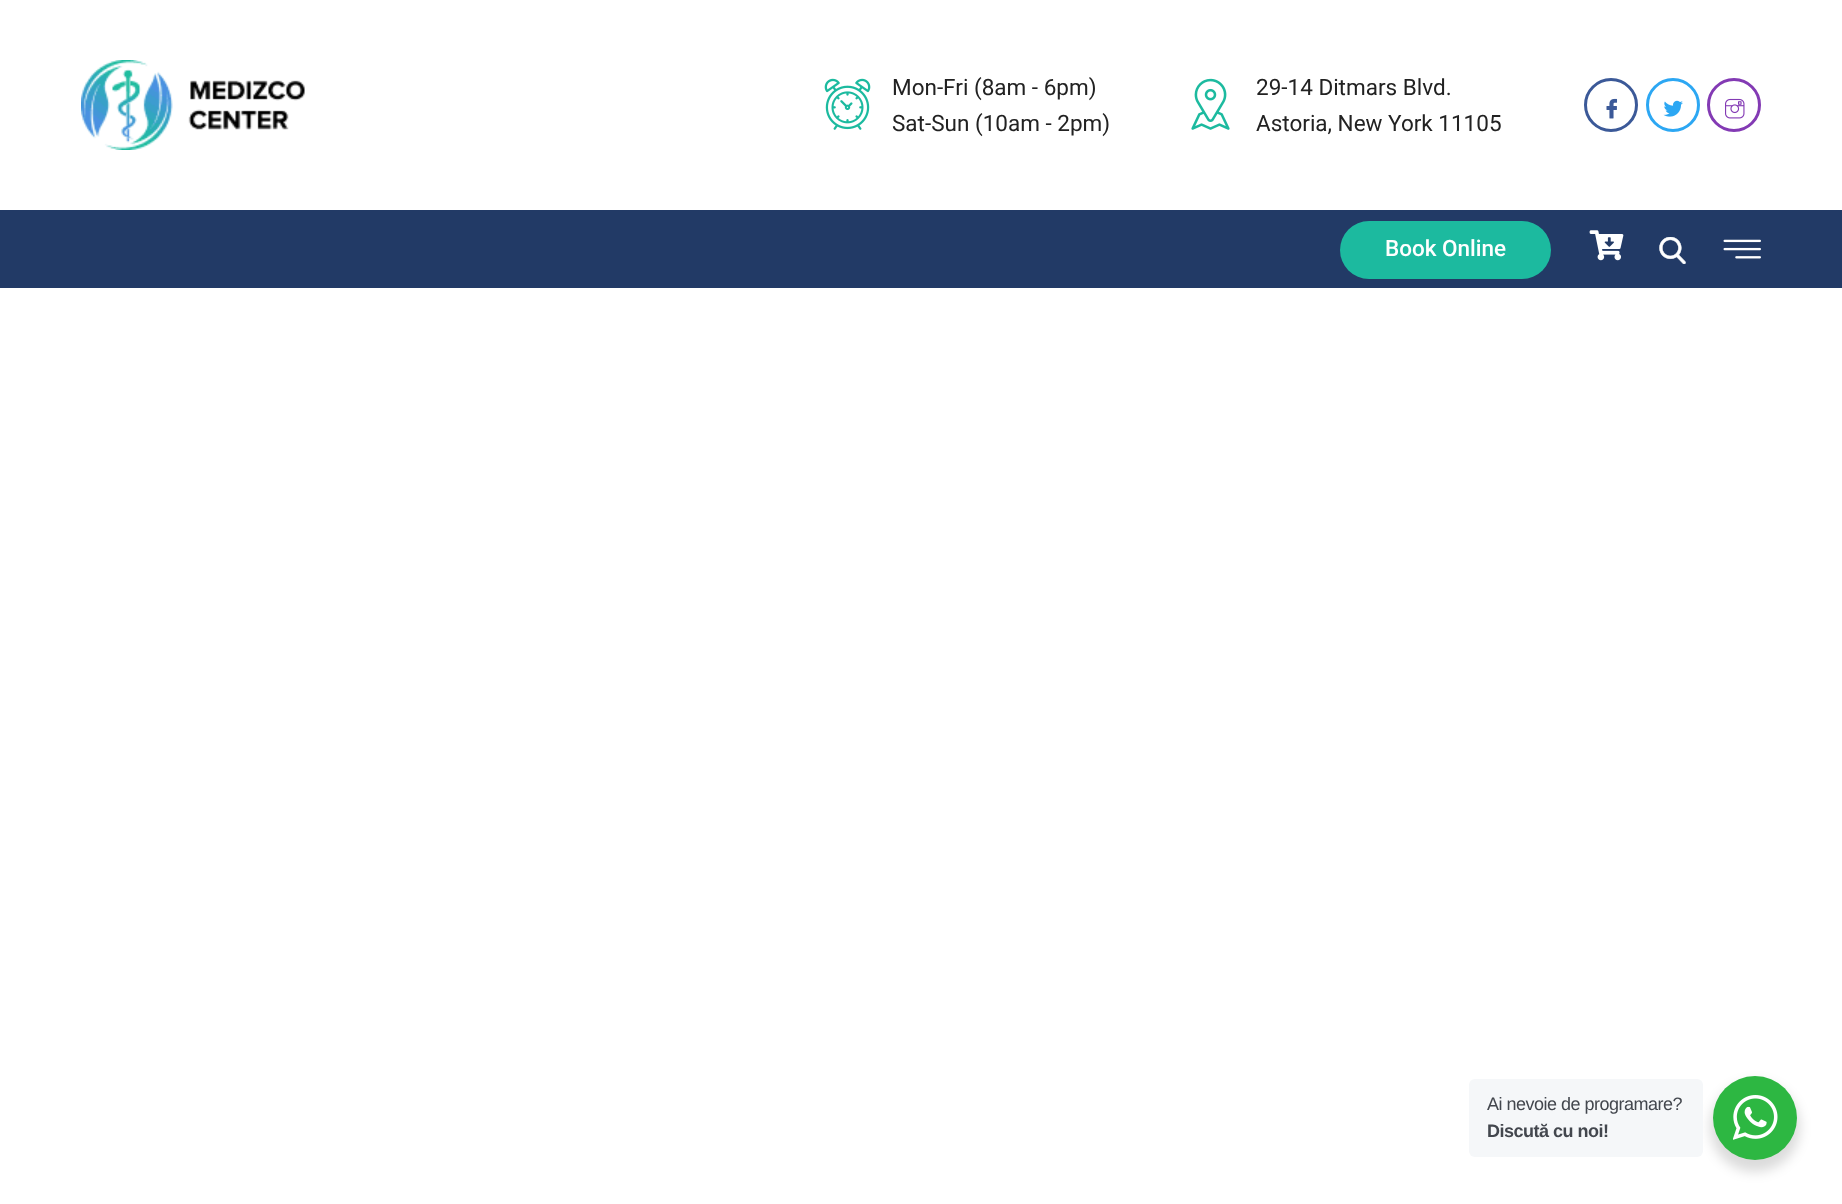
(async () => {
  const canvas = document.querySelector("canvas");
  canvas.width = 1842;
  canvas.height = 1204;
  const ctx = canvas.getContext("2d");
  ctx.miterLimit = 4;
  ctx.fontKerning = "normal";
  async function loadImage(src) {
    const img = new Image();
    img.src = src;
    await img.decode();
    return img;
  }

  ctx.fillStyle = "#ffffff";
  ctx.fillRect(0, 0, 1842, 1204);
  ctx.drawImage(await loadImage("img/1.png"), 81, 60, 224, 90);
  ctx.drawImage(await loadImage("img/2.png"), 824, 78, 47, 52);
  ctx.drawImage(await loadImage("img/3.png"), 1191, 78, 39, 52);
  ctx.beginPath();
  ctx.arc(1611, 105, 25.5, 0, Math.PI * 2);
  ctx.strokeStyle = "#3b5998";
  ctx.lineWidth = 3;
  ctx.stroke();
  ctx.drawImage(await loadImage("img/4.png"), 1606, 98, 12, 21);
  ctx.beginPath();
  ctx.arc(1673, 105, 25.5, 0, Math.PI * 2);
  ctx.strokeStyle = "#2ca7f3";
  ctx.stroke();
  ctx.drawImage(await loadImage("img/5.png"), 1663, 100, 20, 17);
  ctx.beginPath();
  ctx.arc(1734, 105, 25.5, 0, Math.PI * 2);
  ctx.strokeStyle = "#833ab4";
  ctx.stroke();
  ctx.drawImage(await loadImage("img/6.png"), 1725, 98, 20, 21);
  ctx.fillStyle = "#223a66";
  ctx.fillRect(0, 210, 1842, 78);
  ctx.fillStyle = "#1cba9f";
  ctx.beginPath();
  ctx.roundRect(1340, 221, 211, 58, 29);
  ctx.fill();
  ctx.drawImage(await loadImage("img/7.png"), 1589, 230, 35, 31);
  ctx.drawImage(await loadImage("img/8.png"), 1659, 237, 27, 27);
  ctx.drawImage(await loadImage("img/9.png"), 1723, 239, 38, 20);
  ctx.fillStyle = "rgba(0, 0, 0, 0.14)";
  ctx.filter = "blur(6px)";
  ctx.beginPath();
  ctx.roundRect(1710, 1082, 90, 90, 45);
  ctx.fill();
  ctx.filter = "none";
  ctx.fillStyle = "#f5f7f9";
  ctx.beginPath();
  ctx.roundRect(1469, 1079, 234, 78, 6);
  ctx.fill();
  ctx.fillStyle = "#2db742";
  ctx.beginPath();
  ctx.arc(1755, 1118, 42, 0, Math.PI * 2);
  ctx.fill();
  ctx.drawImage(await loadImage("img/10.png"), 1733, 1095, 45, 45);
  ctx.font = "22.5px Roboto";
  ctx.fillStyle = "#222222";
  for (const [text, x, y] of [
    ["Mon-Fri (8am - 6pm)", 892, 95],
    ["Sat-Sun (10am - 2pm)", 892, 131],
    ["29-14 Ditmars Blvd.", 1256, 95],
    ["Astoria, New York 11105", 1256, 131],
  ]) {
    ctx.fillText(text, x, y);
  }
  ctx.font = "500 22.5px Roboto";
  ctx.fillStyle = "#ffffff";
  ctx.fillText("Book Online", 1385, 256);
  ctx.letterSpacing = "-0.5px";
  ctx.font = "18px Liberation Sans";
  ctx.fillStyle = "#43474e";
  ctx.fillText("Ai nevoie de programare?", 1487, 1110);
  ctx.font = "bold 18px Liberation Sans";
  ctx.fillText("Discută cu noi!", 1487, 1137);
})();
